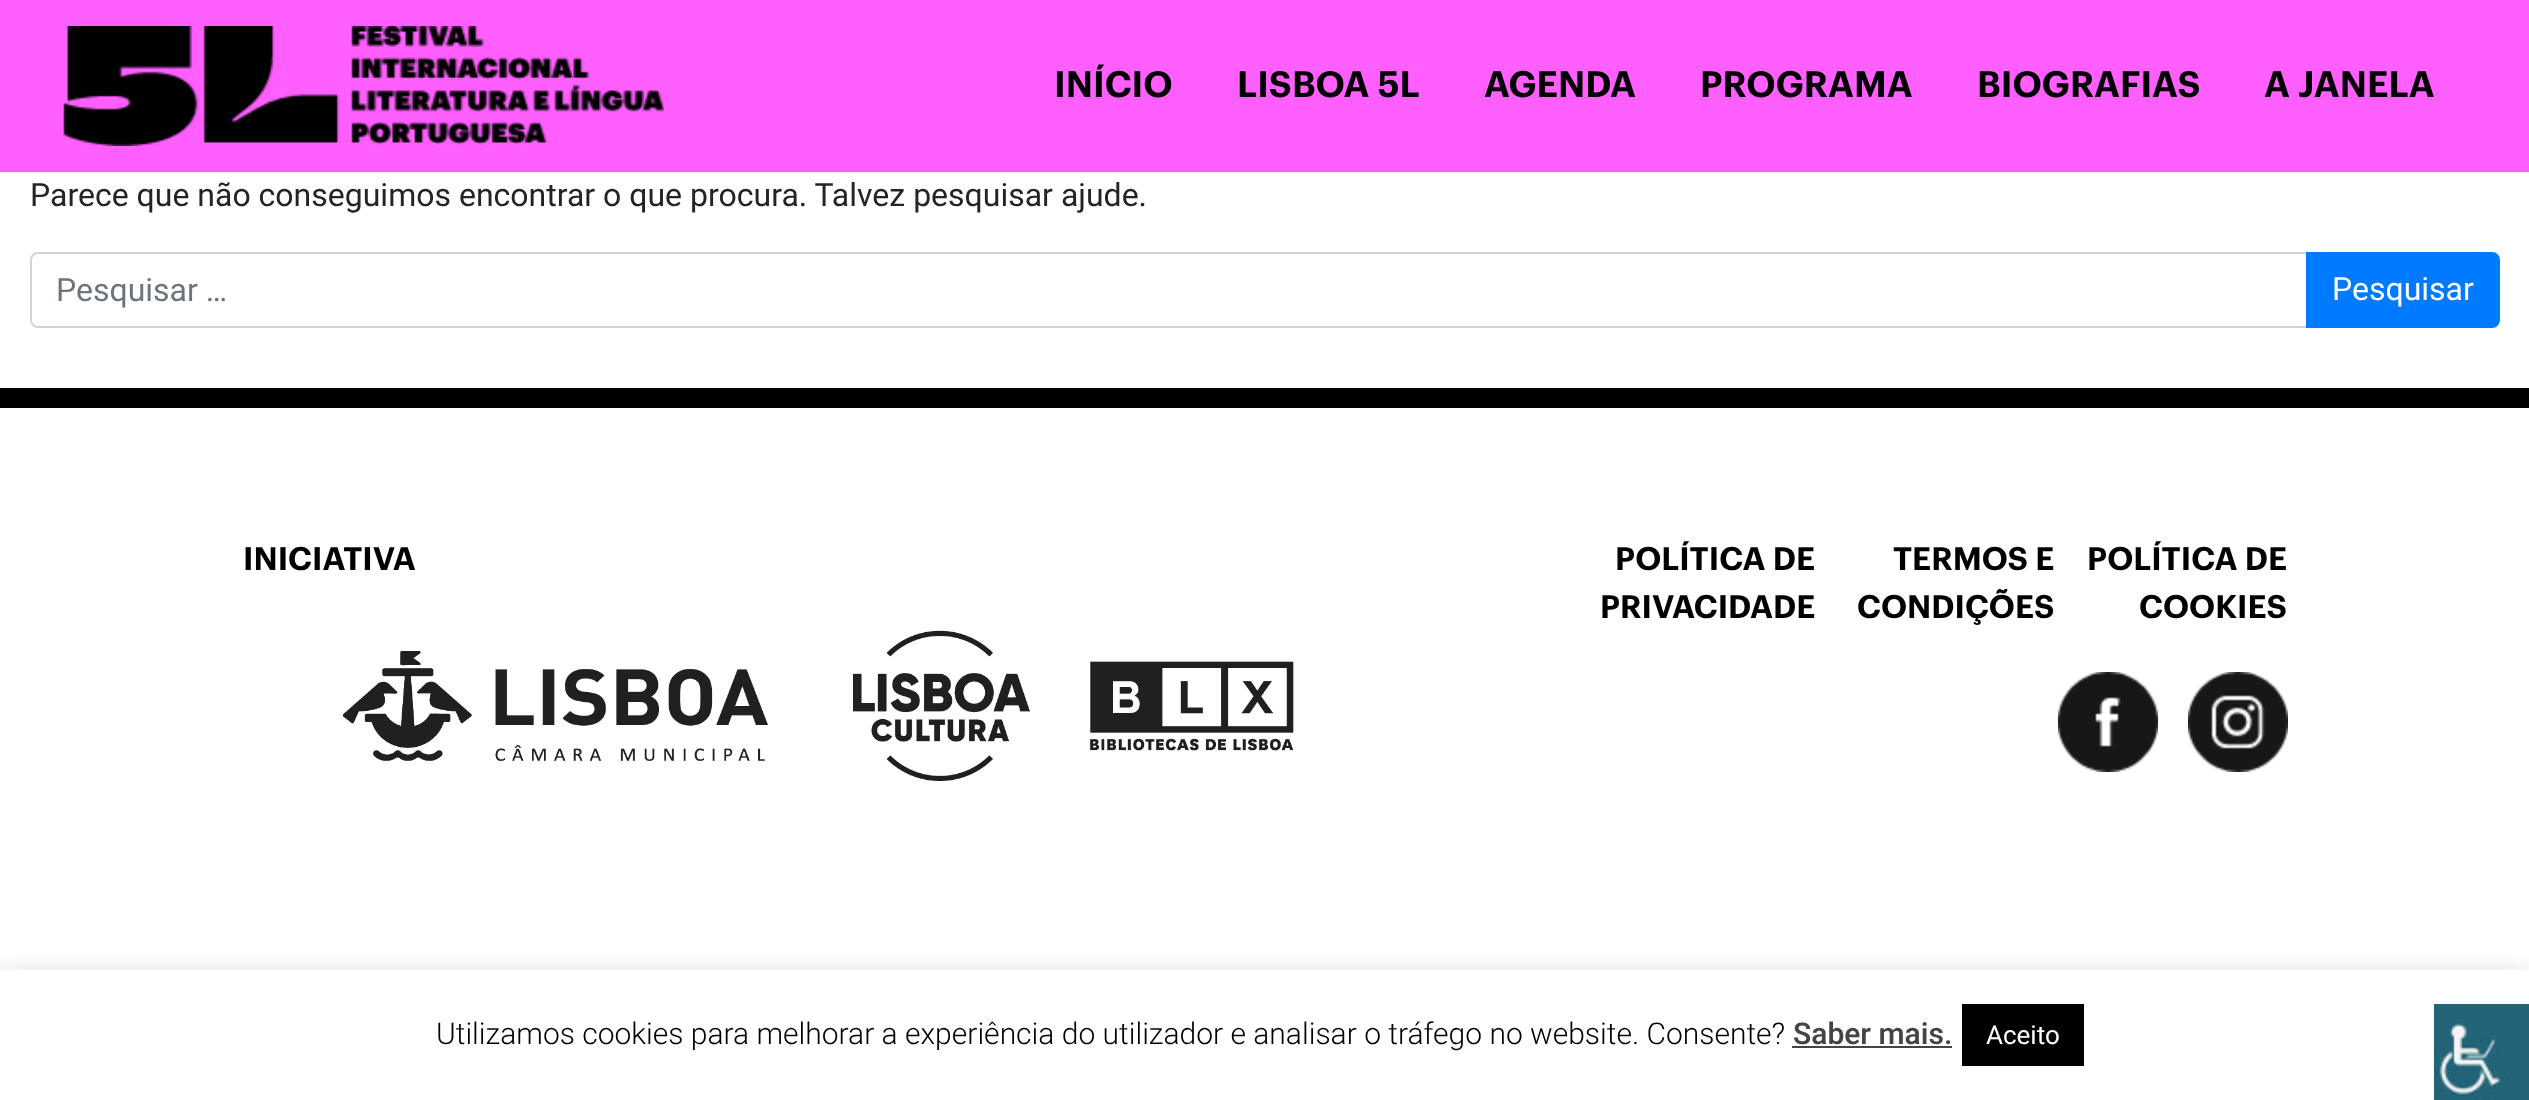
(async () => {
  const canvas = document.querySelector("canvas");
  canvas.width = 2529;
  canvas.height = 1100;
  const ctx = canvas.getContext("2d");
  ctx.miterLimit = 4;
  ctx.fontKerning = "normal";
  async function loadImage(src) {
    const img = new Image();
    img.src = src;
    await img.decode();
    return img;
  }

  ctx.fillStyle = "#ffffff";
  ctx.fillRect(0, 0, 2529, 1100);
  ctx.fillStyle = "#ff5fff";
  ctx.fillRect(0, 0, 2529, 172);
  ctx.drawImage(await loadImage("img/1.png"), 63, 26, 601, 120);
  ctx.beginPath();
  ctx.roundRect(31, 253, 2276, 74, [7, 0, 0, 7]);
  ctx.strokeStyle = "#ced4da";
  ctx.lineWidth = 2;
  ctx.stroke();
  ctx.fillStyle = "#007bff";
  ctx.beginPath();
  ctx.roundRect(2307, 253, 192, 74, [0, 7, 7, 0]);
  ctx.fill();
  ctx.strokeStyle = "#007bff";
  ctx.stroke();
  ctx.fillStyle = "#000000";
  ctx.fillRect(0, 388, 2529, 20);
  ctx.drawImage(await loadImage("img/2.png"), 342, 630, 952, 151);
  ctx.drawImage(await loadImage("img/3.png"), 2058, 672, 100, 100);
  ctx.drawImage(await loadImage("img/4.png"), 2188, 672, 100, 100);
  ctx.save();
  ctx.beginPath();
  ctx.rect(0, 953, 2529, 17);
  ctx.clip();
  ctx.fillStyle = "rgba(172, 171, 171, 0.3)";
  ctx.filter = "blur(10px)";
  ctx.beginPath();
  ctx.rect(0, 968, 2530, 130);
  ctx.fill();
  ctx.filter = "none";
  ctx.restore();
  ctx.fillStyle = "#444444";
  ctx.fillRect(1792, 1046, 160, 2);
  ctx.fillStyle = "#000000";
  ctx.fillRect(1962, 1004, 122, 62);
  ctx.drawImage(await loadImage("img/5.png"), 2434, 1004, 95, 96);
  ctx.font = "600 36px Graphik";
  for (const [text, x, y] of [
    ["INÍCIO", 1054, 97],
    ["LISBOA 5L", 1237, 97],
    ["AGENDA", 1484, 97],
    ["PROGRAMA", 1700, 97],
    ["BIOGRAFIAS", 1977, 97],
    ["A JANELA", 2264, 97],
  ]) {
    ctx.fillText(text, x, y);
  }
  ctx.font = "32px Roboto";
  ctx.fillStyle = "#212529";
  ctx.fillText("Parece que não conseguimos encontrar o que procura. Talvez pesquisar ajude.", 30, 206);
  ctx.fillStyle = "#6c757d";
  ctx.fillText("Pesquisar …", 56, 301);
  ctx.fillStyle = "#ffffff";
  ctx.fillText("Pesquisar", 2332, 300);
  ctx.font = "600 32px Graphik";
  ctx.fillStyle = "#000000";
  for (const [text, x, y] of [
    ["INICIATIVA", 243, 570],
    ["POLÍTICA DE", 1615, 570],
    ["PRIVACIDADE", 1600, 618],
    ["TERMOS E", 1893, 570],
    ["CONDIÇÕES", 1857, 618],
    ["POLÍTICA DE", 2087, 570],
    ["COOKIES", 2139, 618],
  ]) {
    ctx.fillText(text, x, y);
  }
  ctx.font = "300 30px Roboto";
  ctx.fillText("Utilizamos cookies para melhorar a experiência do utilizador e analisar o tráfego no website. Consente?", 436, 1044);
  ctx.font = "500 30px Roboto";
  ctx.fillStyle = "#444444";
  ctx.fillText("Saber mais.", 1793, 1044);
  ctx.font = "26px Roboto";
  ctx.fillStyle = "#ffffff";
  ctx.fillText("Aceito", 1986, 1044);
})();
